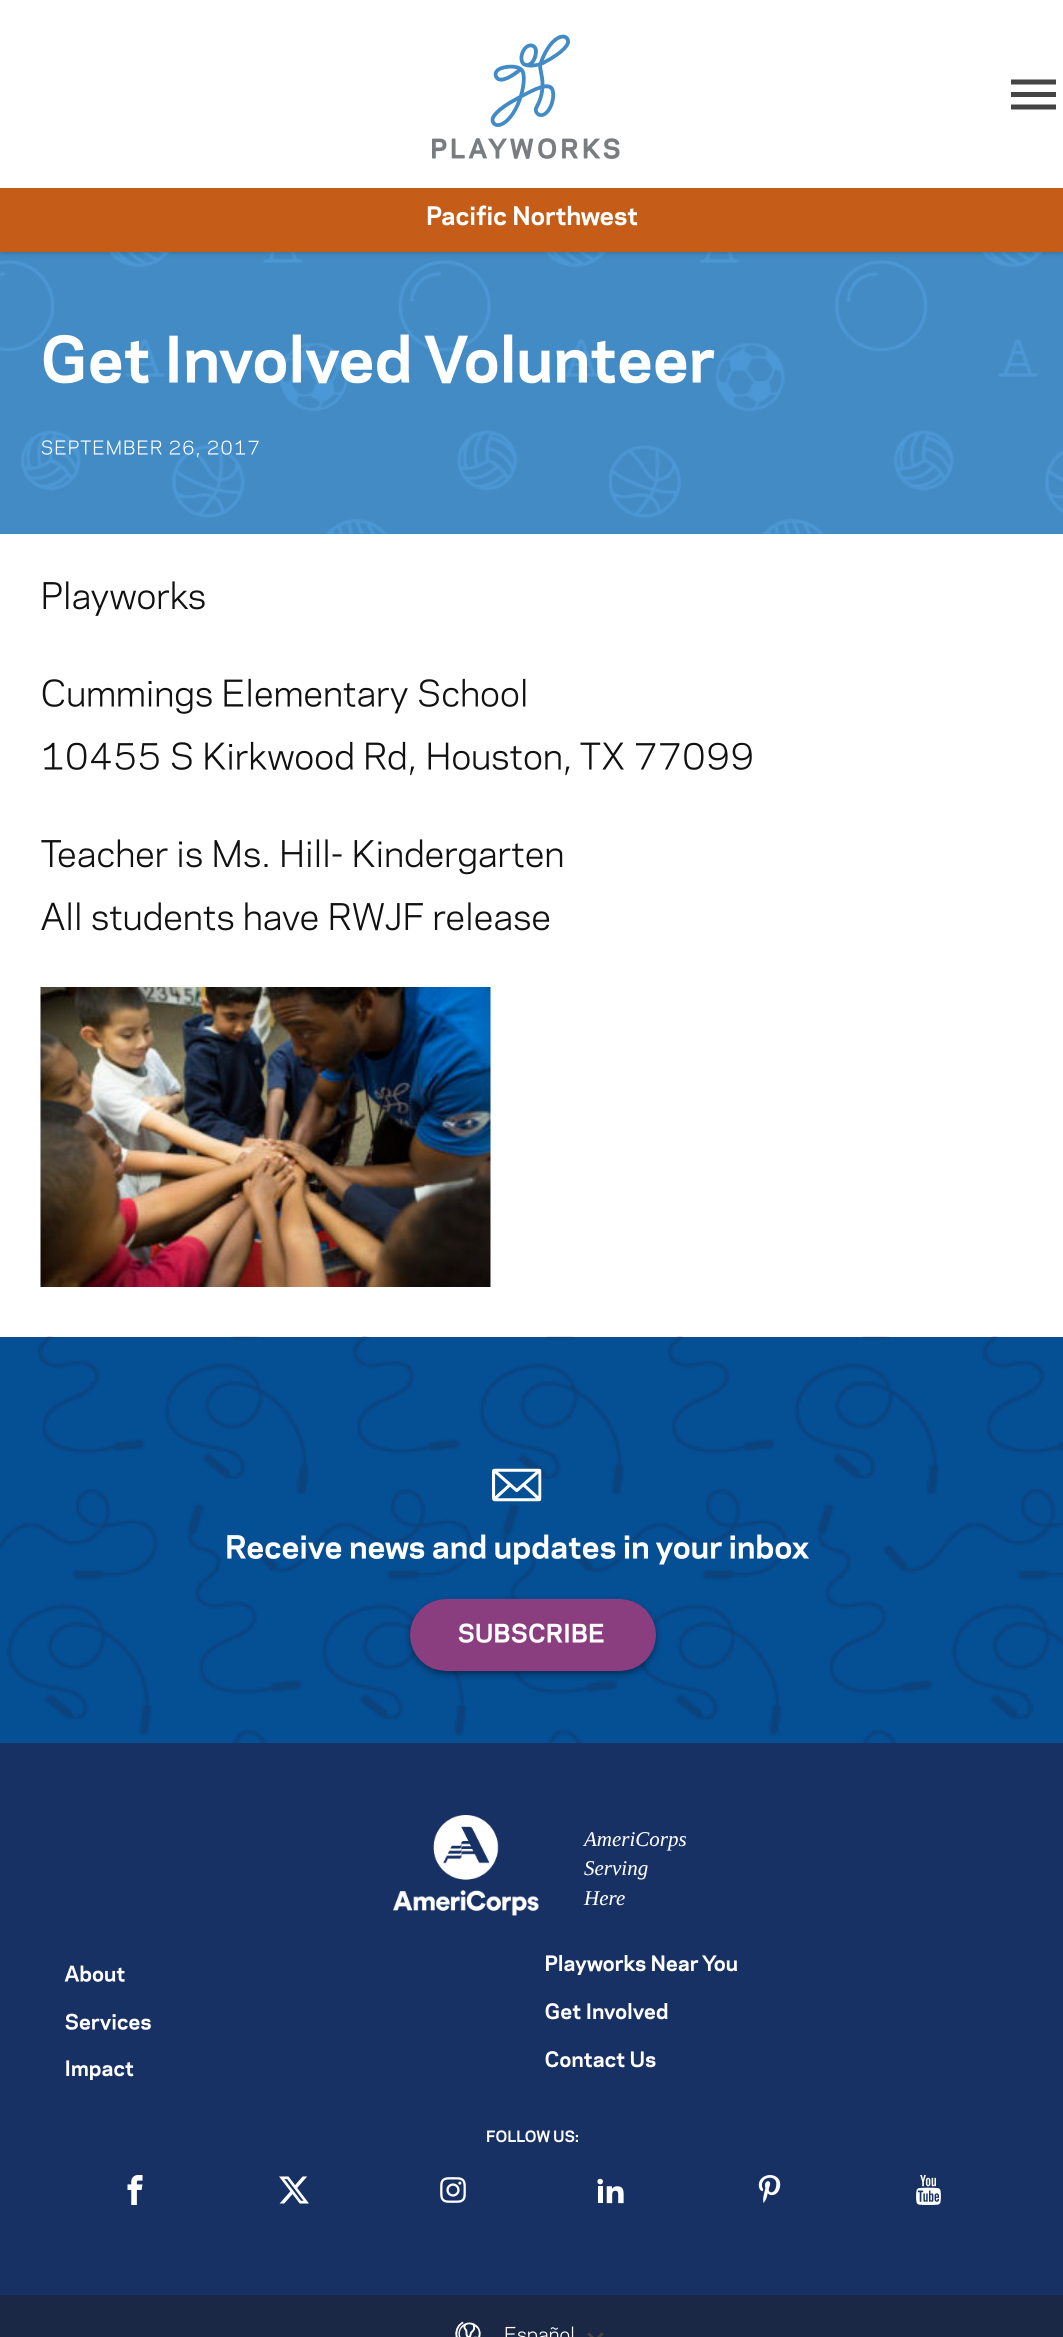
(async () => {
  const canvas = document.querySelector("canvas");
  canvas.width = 1063;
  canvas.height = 2337;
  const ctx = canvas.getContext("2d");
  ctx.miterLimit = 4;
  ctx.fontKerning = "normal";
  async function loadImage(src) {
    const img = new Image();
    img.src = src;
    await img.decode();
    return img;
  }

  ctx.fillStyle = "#ffffff";
  ctx.fillRect(0, 0, 1063, 2337);
  ctx.fillStyle = "#438bc5";
  ctx.fillRect(0, 252, 1063, 282);
  ctx.drawImage(await loadImage("img/4.png"), 0, 252, 1063, 282);
  ctx.fillStyle = "rgba(17, 17, 17, 0.3)";
  ctx.filter = "blur(3px)";
  ctx.beginPath();
  ctx.rect(0, 0, 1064, 252);
  ctx.fill();
  ctx.filter = "none";
  ctx.fillStyle = "#ffffff";
  ctx.fillRect(0, 0, 1063, 188);
  ctx.drawImage(await loadImage("img/1.png"), 432, 34, 188, 125);
  ctx.drawImage(await loadImage("img/2.png"), 1011, 79, 45, 31);
  ctx.fillStyle = "#c55d18";
  ctx.fillRect(0, 188, 1063, 64);
  ctx.drawImage(await loadImage("img/3.png"), 427, 205, 211, 21);
  ctx.drawImage(await loadImage("img/5.png"), 43, 334, 672, 50);
  ctx.drawImage(await loadImage("img/6.png"), 41, 440, 218, 18);
  ctx.drawImage(await loadImage("img/7.png"), 43, 581, 162, 35);
  ctx.drawImage(await loadImage("img/8.png"), 42, 678, 484, 36);
  ctx.drawImage(await loadImage("img/9.png"), 44, 741, 708, 35);
  ctx.drawImage(await loadImage("img/10.png"), 41, 839, 522, 36);
  ctx.drawImage(await loadImage("img/11.png"), 41, 902, 509, 29);
  ctx.drawImage(await loadImage("img/12.png"), 40, 987, 451, 300);
  ctx.fillStyle = "#054f95";
  ctx.fillRect(0, 1337, 1063, 406);
  ctx.drawImage(await loadImage("img/13.png"), 0, 1336, 1063, 407);
  ctx.drawImage(await loadImage("img/14.png"), 492, 1468, 50, 34);
  ctx.drawImage(await loadImage("img/15.png"), 227, 1534, 582, 31);
  ctx.fillStyle = "rgba(0, 0, 0, 0.42)";
  ctx.filter = "blur(3px)";
  ctx.beginPath();
  ctx.roundRect(410, 1602, 246, 72, 36);
  ctx.fill();
  ctx.filter = "none";
  ctx.fillStyle = "#8b3e7f";
  ctx.beginPath();
  ctx.roundRect(410, 1599, 246, 72, 36);
  ctx.fill();
  ctx.drawImage(await loadImage("img/16.png"), 458, 1623, 146, 20);
  ctx.fillStyle = "#183165";
  ctx.fillRect(0, 1743, 1063, 552);
  ctx.drawImage(await loadImage("img/17.png"), 393, 1815, 146, 101);
  ctx.drawImage(await loadImage("img/18.png"), 64, 1965, 61, 17);
  ctx.drawImage(await loadImage("img/19.png"), 546, 1955, 191, 20);
  ctx.drawImage(await loadImage("img/20.png"), 65, 2013, 86, 17);
  ctx.drawImage(await loadImage("img/21.png"), 545, 2003, 123, 17);
  ctx.drawImage(await loadImage("img/22.png"), 66, 2060, 68, 20);
  ctx.drawImage(await loadImage("img/23.png"), 545, 2051, 111, 17);
  ctx.drawImage(await loadImage("img/24.png"), 487, 2130, 91, 13);
  ctx.drawImage(await loadImage("img/25.png"), 127, 2175, 16, 30);
  ctx.drawImage(await loadImage("img/26.png"), 279, 2176, 30, 28);
  ctx.drawImage(await loadImage("img/27.png"), 440, 2177, 26, 26);
  ctx.drawImage(await loadImage("img/28.png"), 597, 2178, 27, 26);
  ctx.drawImage(await loadImage("img/29.png"), 758, 2175, 23, 28);
  ctx.drawImage(await loadImage("img/30.png"), 916, 2175, 25, 30);
  ctx.fillStyle = "#1a2845";
  ctx.fillRect(0, 2295, 1063, 42);
  ctx.drawImage(await loadImage("img/31.png"), 455, 2321, 26, 16);
  ctx.drawImage(await loadImage("img/32.png"), 505, 2326, 69, 11);
  ctx.drawImage(await loadImage("img/33.png"), 587, 2332, 17, 5);
  ctx.font = "italic 21px Liberation Serif";
  ctx.fillStyle = "#ffffff";
  for (const [text, x, y] of [
    ["AmeriCorps", 584, 1846],
    ["Serving", 584, 1875],
    ["Here", 584, 1905],
  ]) {
    ctx.fillText(text, x, y);
  }
})();
